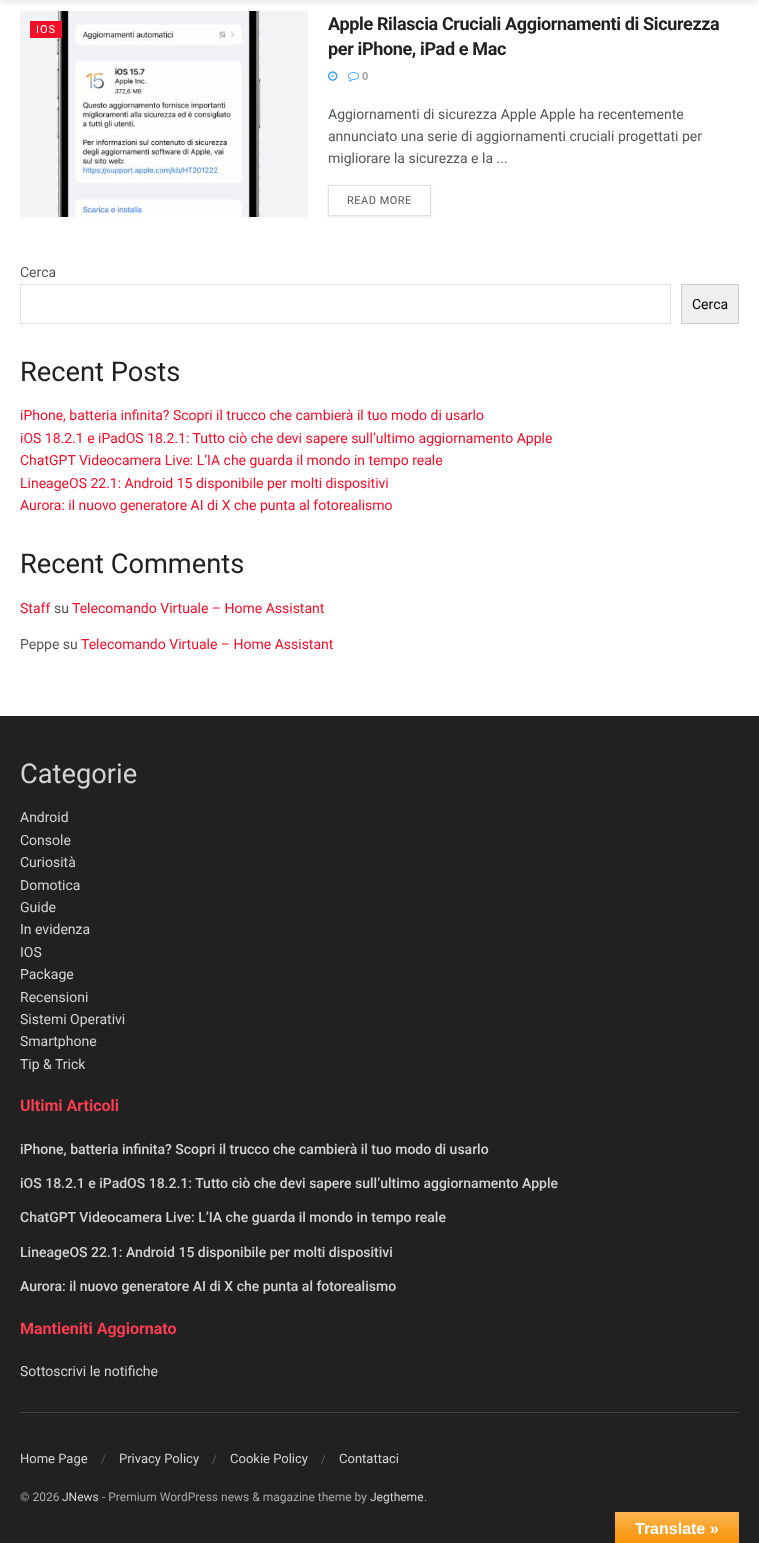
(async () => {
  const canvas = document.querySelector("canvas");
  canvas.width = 759;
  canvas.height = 1543;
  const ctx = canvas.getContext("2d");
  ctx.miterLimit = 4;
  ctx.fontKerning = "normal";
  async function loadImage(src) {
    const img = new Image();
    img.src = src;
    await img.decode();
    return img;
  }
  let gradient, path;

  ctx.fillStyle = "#ffffff";
  ctx.fillRect(0, 0, 759, 1543);
  ctx.drawImage(await loadImage("img/1.png"), 20, 11, 288, 206);
  ctx.fillStyle = "rgba(0, 0, 0, 0.1)";
  ctx.filter = "blur(3px)";
  ctx.beginPath();
  ctx.rect(0, -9, 759, 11);
  ctx.fill();
  ctx.filter = "none";
  ctx.fillStyle = "#f70d28";
  ctx.fillRect(30, 21, 32, 17);
  ctx.drawImage(await loadImage("img/2.png"), 328, 71, 10, 10);
  ctx.drawImage(await loadImage("img/3.png"), 348, 72, 11, 10);
  ctx.save();
  path = new Path2D("M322 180H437V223H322ZM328 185H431V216H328Z");
  ctx.clip(path, "evenodd");
  ctx.fillStyle = "rgba(0, 0, 0, 0.1)";
  ctx.filter = "blur(1.5px)";
  ctx.beginPath();
  ctx.rect(328, 186, 103, 31);
  ctx.fill();
  ctx.filter = "none";
  ctx.restore();
  ctx.strokeStyle = "#e0e0e0";
  ctx.strokeRect(328.5, 185.5, 102, 30);
  ctx.strokeRect(20.5, 284.5, 650, 39);
  ctx.fillStyle = "#efefef";
  ctx.beginPath();
  ctx.rect(681.5, 284.5, 57, 39);
  ctx.fill();
  ctx.strokeStyle = "#cccccc";
  ctx.stroke();
  ctx.fillStyle = "#212121";
  ctx.fillRect(0, 716, 759, 827);
  ctx.fillStyle = "#424242";
  ctx.fillRect(20, 1412, 719, 1);
  gradient = ctx.createLinearGradient(677, 1512, 677, 1543);
  gradient.addColorStop(0, "#fbb450");
  gradient.addColorStop(1, "#f89406");
  ctx.fillStyle = gradient;
  ctx.fillRect(615, 1512, 124, 31);
  ctx.letterSpacing = "1px";
  ctx.font = "11px Roboto";
  ctx.fillStyle = "#ffffff";
  ctx.fillText("IOS", 36, 33);
  ctx.letterSpacing = "-0.35px";
  ctx.font = "bold 18px Roboto";
  ctx.fillStyle = "#212121";
  ctx.fillText("Apple Rilascia Cruciali Aggiornamenti di Sicurezza", 328, 30);
  ctx.fillText("per iPhone, iPad e Mac", 328, 55);
  ctx.letterSpacing = "0px";
  ctx.font = "bold 11px Roboto";
  ctx.fillStyle = "#a0a0a0";
  ctx.fillText("0", 362, 80);
  ctx.font = "14px Roboto";
  ctx.fillStyle = "#53585c";
  for (const [text, x, y] of [
    ["Aggiornamenti di sicurezza Apple Apple ha recentemente", 328, 119],
    ["annunciato una serie di aggiornamenti cruciali progettati per", 328, 141],
    ["migliorare la sicurezza e la ...", 328, 163],
  ]) {
    ctx.fillText(text, x, y);
  }
  ctx.letterSpacing = "0.5px";
  ctx.font = "11px Roboto";
  ctx.fillText("READ MORE", 347, 204);
  ctx.letterSpacing = "0px";
  ctx.font = "14px Roboto";
  ctx.fillText("Cerca", 20, 277);
  ctx.fillStyle = "#000000";
  ctx.fillText("Cerca", 692, 309);
  ctx.font = "27.25px Roboto";
  ctx.fillStyle = "#212121";
  ctx.fillText("Recent Posts", 20, 381);
  ctx.font = "14px Roboto";
  ctx.fillStyle = "#f70d28";
  for (const [text, x, y] of [
    ["iPhone, batteria infinita? Scopri il trucco che cambierà il tuo modo di usarlo", 20, 420],
    ["iOS 18.2.1 e iPadOS 18.2.1: Tutto ciò che devi sapere sull’ultimo aggiornamento Apple", 20, 443],
    ["ChatGPT Videocamera Live: L’IA che guarda il mondo in tempo reale", 20, 465],
    ["LineageOS 22.1: Android 15 disponibile per molti dispositivi", 20, 488],
    ["Aurora: il nuovo generatore AI di X che punta al fotorealismo", 20, 510],
  ]) {
    ctx.fillText(text, x, y);
  }
  ctx.font = "27.25px Roboto";
  ctx.fillStyle = "#212121";
  ctx.fillText("Recent Comments", 20, 573);
  ctx.font = "14px Roboto";
  ctx.fillStyle = "#f70d28";
  ctx.fillText("Staff", 20, 613);
  ctx.fillStyle = "#53585c";
  ctx.fillText("su", 54, 613);
  ctx.fillStyle = "#f70d28";
  ctx.fillText("Telecomando Virtuale – Home Assistant", 72, 613);
  ctx.fillStyle = "#53585c";
  ctx.fillText("Peppe su", 20, 649);
  ctx.fillStyle = "#f70d28";
  ctx.fillText("Telecomando Virtuale – Home Assistant", 81, 649);
  ctx.font = "27.25px Roboto";
  ctx.fillStyle = "#d3d3d3";
  ctx.fillText("Categorie", 20, 783);
  ctx.font = "14px Roboto";
  for (const [text, x, y] of [
    ["Android", 20, 822],
    ["Console", 20, 845],
    ["Curiosità", 20, 867],
    ["Domotica", 20, 890],
    ["Guide", 20, 912],
    ["In evidenza", 20, 934],
    ["IOS", 20, 957],
    ["Package", 20, 979],
    ["Recensioni", 20, 1002],
    ["Sistemi Operativi", 20, 1024],
    ["Smartphone", 20, 1046],
    ["Tip & Trick", 20, 1069],
  ]) {
    ctx.fillText(text, x, y);
  }
  ctx.font = "bold 16px Roboto";
  ctx.fillStyle = "#f93d53";
  ctx.fillText("Ultimi Articoli", 20, 1111);
  ctx.font = "500 14px Roboto";
  ctx.fillStyle = "#d3d3d3";
  for (const [text, x, y] of [
    ["iPhone, batteria infinita? Scopri il trucco che cambierà il tuo modo di usarlo", 20, 1154],
    ["iOS 18.2.1 e iPadOS 18.2.1: Tutto ciò che devi sapere sull’ultimo aggiornamento Apple", 20, 1188],
    ["ChatGPT Videocamera Live: L’IA che guarda il mondo in tempo reale", 20, 1222],
    ["LineageOS 22.1: Android 15 disponibile per molti dispositivi", 20, 1257],
    ["Aurora: il nuovo generatore AI di X che punta al fotorealismo", 20, 1291],
  ]) {
    ctx.fillText(text, x, y);
  }
  ctx.font = "bold 16px Roboto";
  ctx.fillStyle = "#f93d53";
  ctx.fillText("Mantieniti Aggiornato", 20, 1334);
  ctx.font = "14px Roboto";
  ctx.fillStyle = "#d3d3d3";
  ctx.fillText("Sottoscrivi le notifiche", 20, 1376);
  ctx.font = "13px Roboto";
  ctx.fillText("Home Page", 20, 1463);
  ctx.font = "11px Roboto";
  ctx.fillStyle = "#646464";
  ctx.fillText("/", 101, 1463);
  ctx.font = "13px Roboto";
  ctx.fillStyle = "#d3d3d3";
  ctx.fillText("Privacy Policy", 119, 1463);
  ctx.font = "11px Roboto";
  ctx.fillStyle = "#646464";
  ctx.fillText("/", 212, 1463);
  ctx.font = "13px Roboto";
  ctx.fillStyle = "#d3d3d3";
  ctx.fillText("Cookie Policy", 230, 1463);
  ctx.font = "11px Roboto";
  ctx.fillStyle = "#646464";
  ctx.fillText("/", 321, 1463);
  ctx.font = "13px Roboto";
  ctx.fillStyle = "#d3d3d3";
  ctx.fillText("Contattaci", 339, 1463);
  ctx.font = "12px Roboto";
  ctx.fillStyle = "#a8a8aa";
  ctx.fillText("© 2026", 20, 1501);
  ctx.fillStyle = "#d3d3d3";
  ctx.fillText("JNews", 62, 1501);
  ctx.fillStyle = "#a8a8aa";
  ctx.fillText("- Premium WordPress news & magazine theme by", 102, 1501);
  ctx.fillStyle = "#d3d3d3";
  ctx.fillText("Jegtheme", 370, 1501);
  ctx.fillStyle = "#a8a8aa";
  ctx.fillText(".", 424, 1501);
  ctx.font = "bold 16px Liberation Sans";
  ctx.fillStyle = "#ffffff";
  ctx.fillText("Translate »", 635, 1534);
})();
